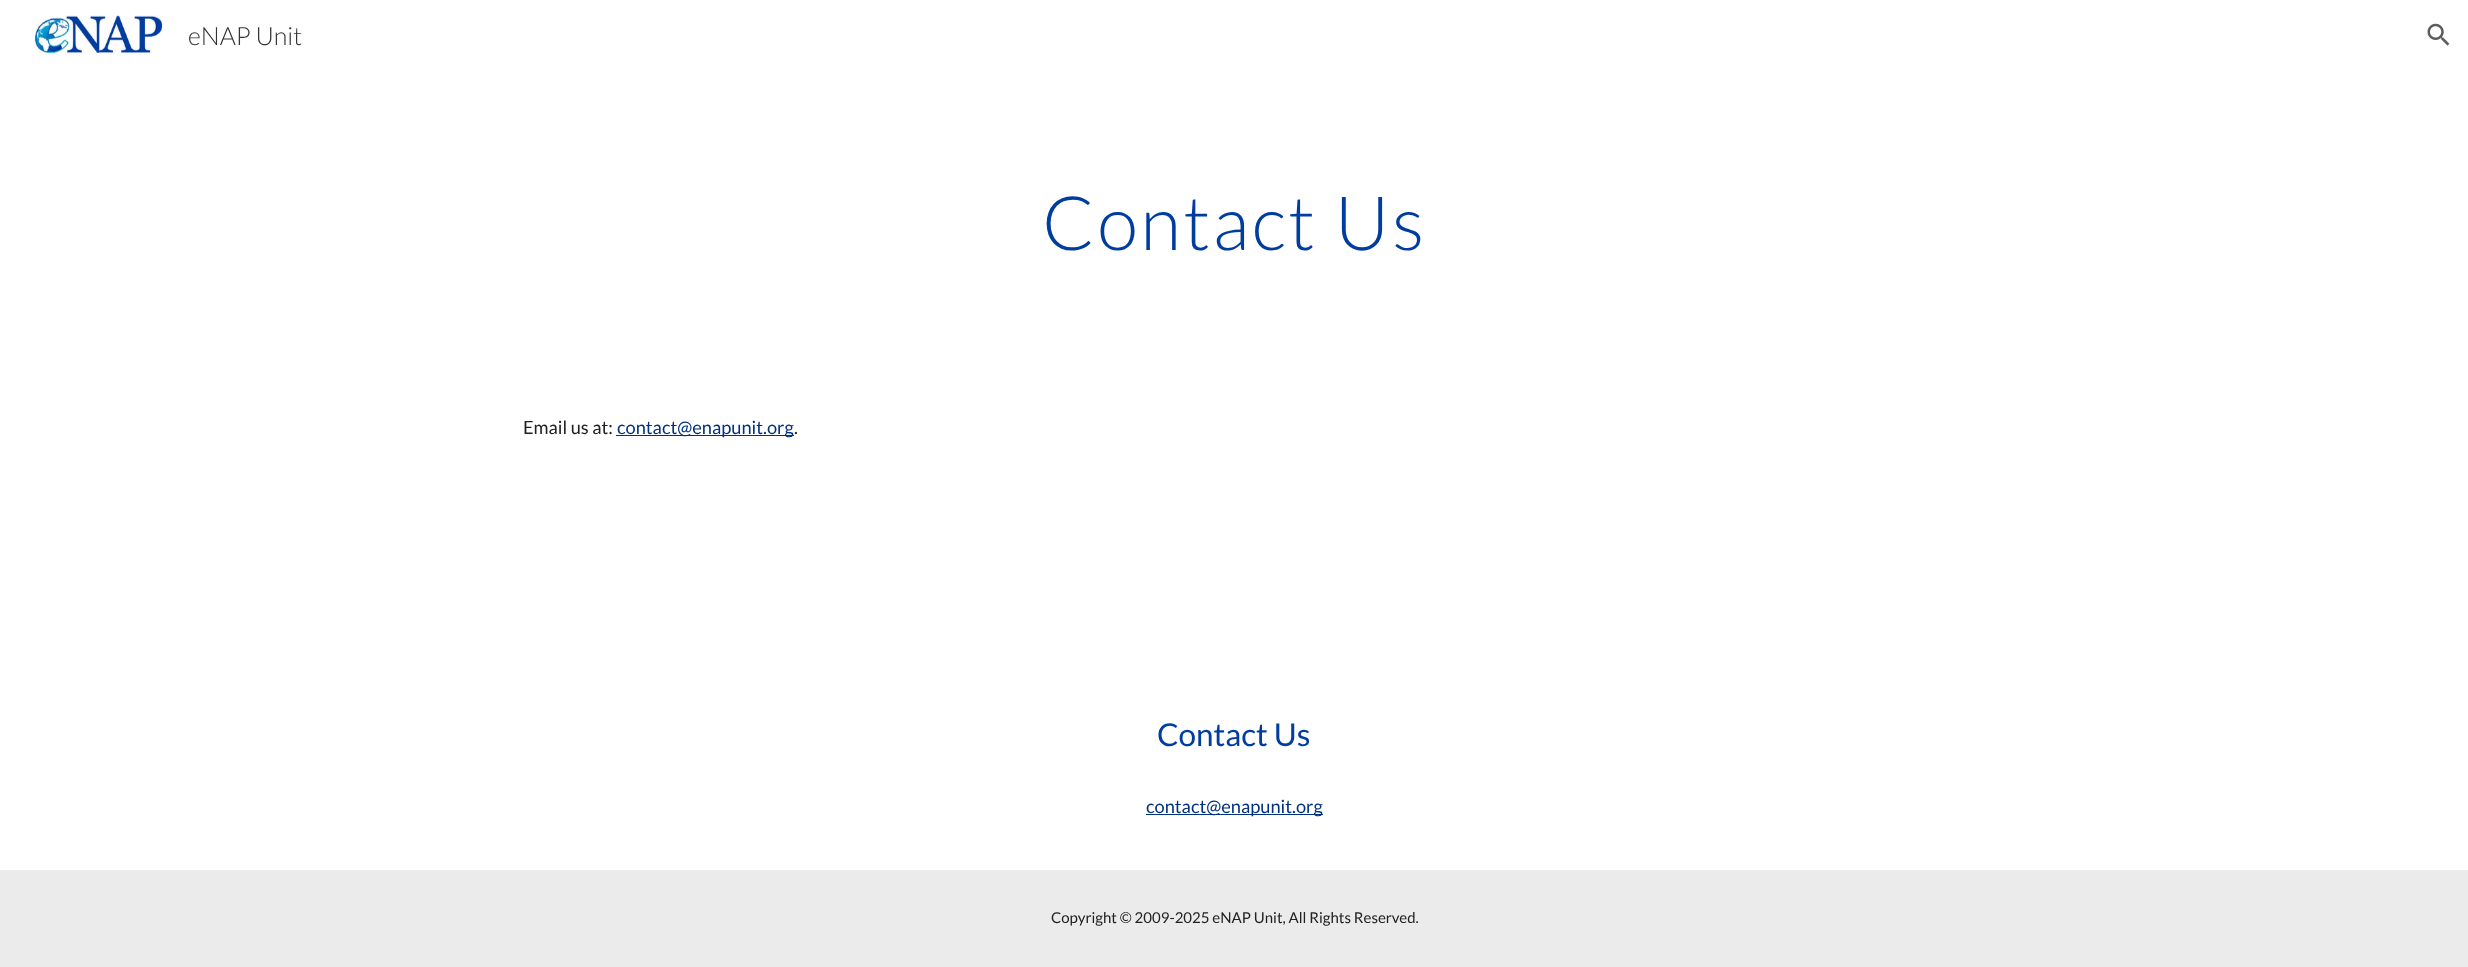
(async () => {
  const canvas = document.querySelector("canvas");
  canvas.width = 2468;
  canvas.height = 967;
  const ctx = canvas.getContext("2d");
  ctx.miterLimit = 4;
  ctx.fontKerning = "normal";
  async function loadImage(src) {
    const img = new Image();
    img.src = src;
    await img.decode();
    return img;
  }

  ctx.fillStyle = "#ffffff";
  ctx.fillRect(0, 0, 2468, 967);
  ctx.drawImage(await loadImage("img/1.png"), 34, 15, 129, 40);
  ctx.drawImage(await loadImage("img/2.png"), 2427, 23, 23, 23);
  for (const [x, y, w, h, color] of [
    [616, 435, 178, 1, "#01317f"],
    [1146, 814, 177, 1, "#01317f"],
    [0, 870, 2468, 97, "#ebebeb"],
  ]) {
    ctx.fillStyle = color;
    ctx.fillRect(x, y, w, h);
  }
  ctx.font = "300 25px Lato";
  ctx.fillStyle = "#333333";
  ctx.fillText("eNAP Unit", 188, 45);
  ctx.letterSpacing = "2.5px";
  ctx.font = "300 75px Lato";
  ctx.fillStyle = "#013d9f";
  ctx.fillText("Contact Us", 1042, 250);
  ctx.letterSpacing = "0px";
  ctx.font = "18.25px Lato";
  ctx.fillStyle = "#212121";
  ctx.fillText("Email us at:", 523, 434);
  ctx.fillStyle = "#01317f";
  ctx.fillText("contact@enapunit.org", 617, 434);
  ctx.fillStyle = "#212121";
  ctx.fillText(".", 794, 434);
  ctx.font = "31.5px Lato";
  ctx.fillStyle = "#013d9f";
  ctx.fillText("Contact Us", 1157, 746);
  ctx.font = "18.25px Lato";
  ctx.fillStyle = "#01317f";
  ctx.fillText("contact@enapunit.org", 1146, 813);
  ctx.font = "15px Lato";
  ctx.fillStyle = "#212121";
  ctx.fillText("Copyright © 2009-2025 eNAP Unit, All Rights Reserved.", 1051, 923);
})();
